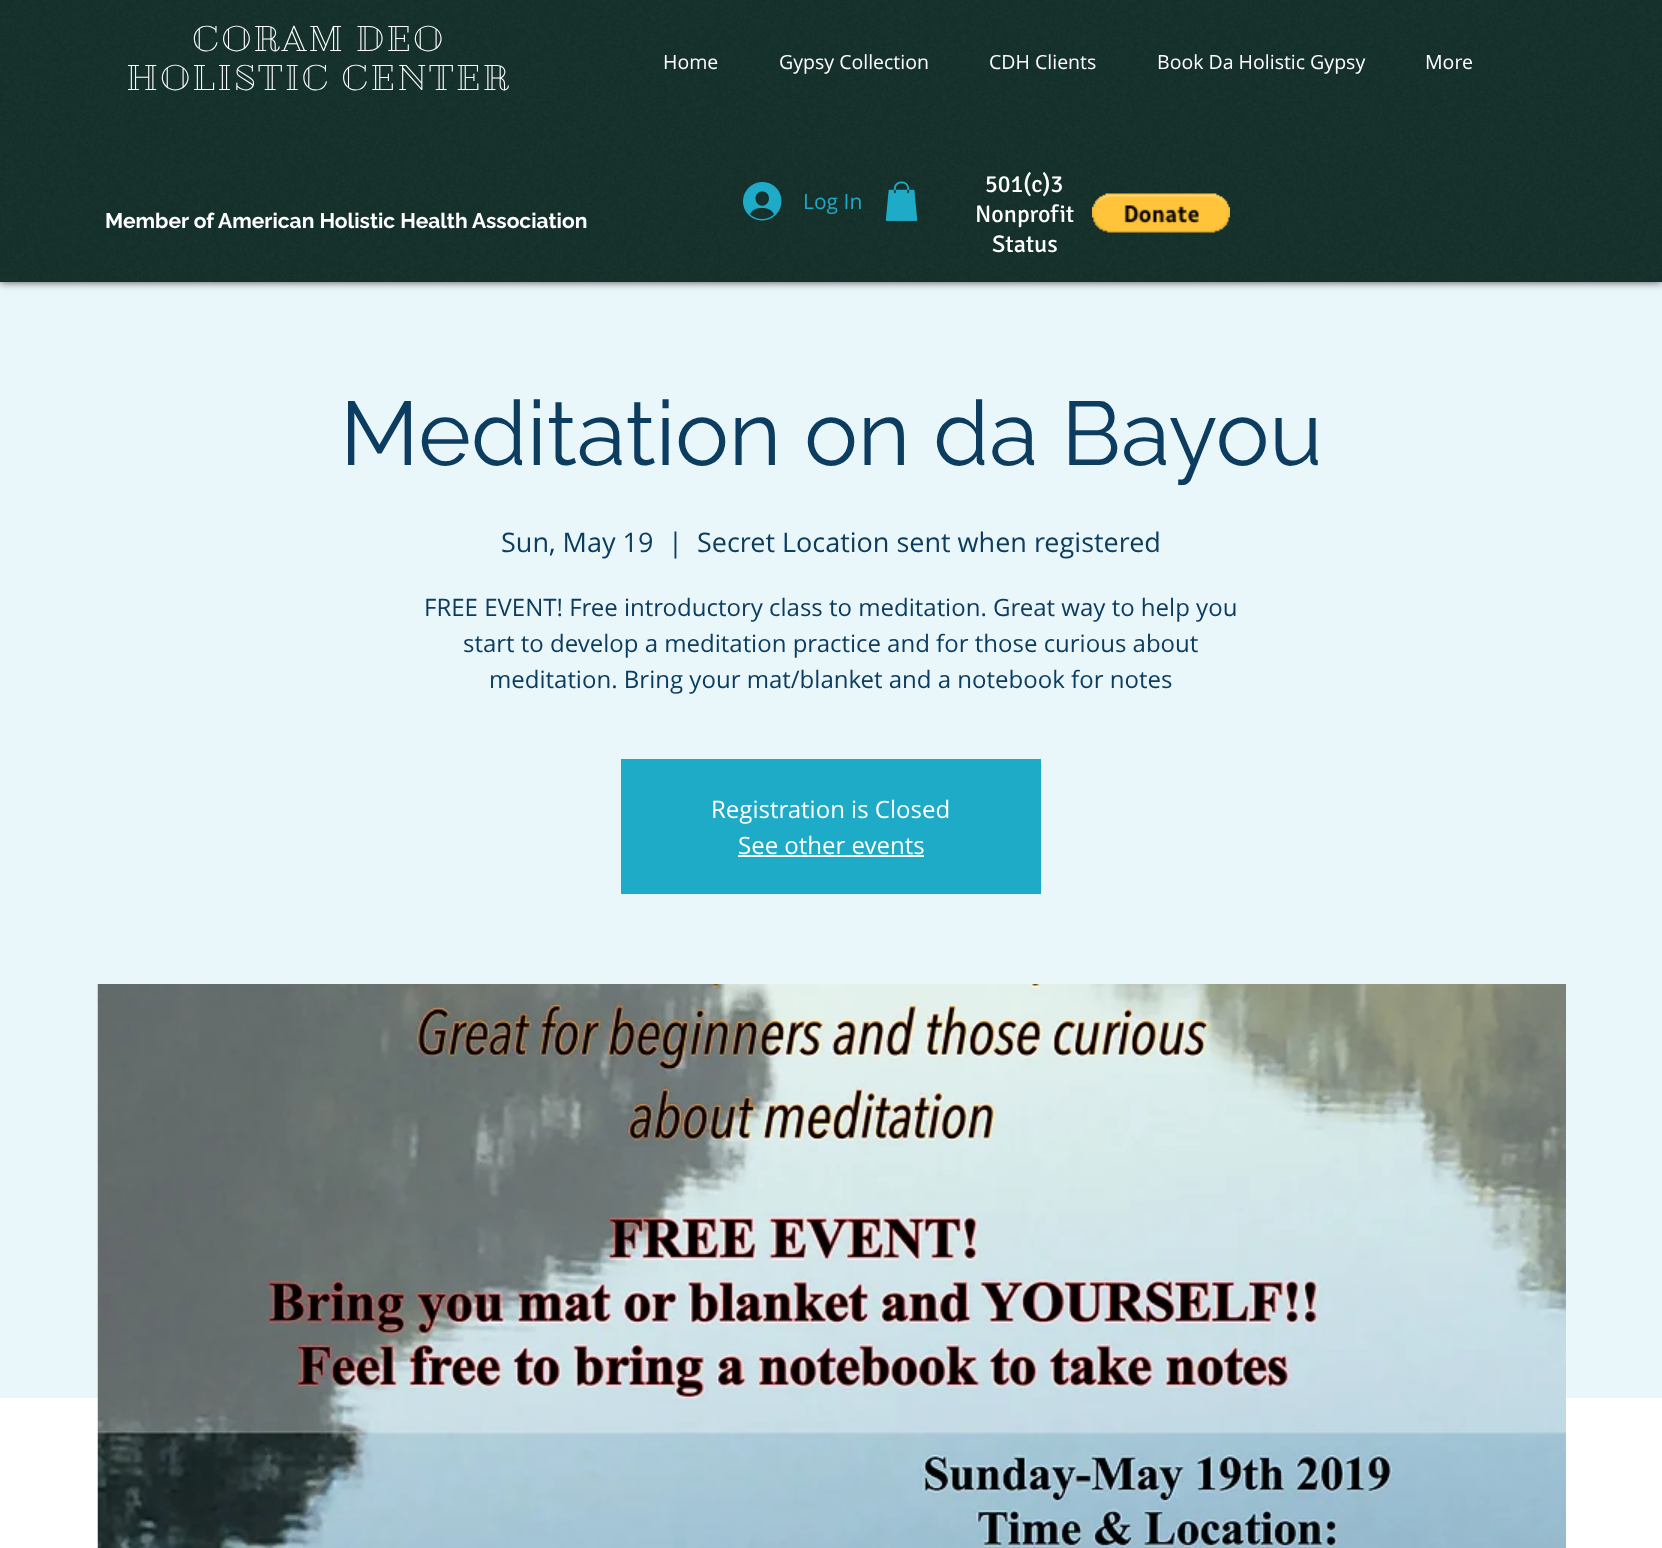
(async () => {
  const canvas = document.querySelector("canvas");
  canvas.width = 1662;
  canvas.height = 1548;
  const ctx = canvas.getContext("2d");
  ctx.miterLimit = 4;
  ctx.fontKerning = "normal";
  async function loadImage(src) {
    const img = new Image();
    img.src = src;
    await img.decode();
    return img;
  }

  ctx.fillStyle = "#ffffff";
  ctx.fillRect(0, 0, 1662, 1548);
  ctx.fillStyle = "#e9f7fa";
  ctx.fillRect(0, 282, 1662, 1116);
  ctx.fillStyle = "rgba(0, 0, 0, 0.7)";
  ctx.filter = "blur(4px)";
  ctx.beginPath();
  ctx.rect(0, 0, 1662, 282);
  ctx.fill();
  ctx.filter = "none";
  ctx.fillStyle = "#15312b";
  ctx.fillRect(0, 0, 1662, 282);
  ctx.drawImage(await loadImage("img/1.png"), 0, 0, 1662, 282);
  ctx.drawImage(await loadImage("img/2.png"), 743, 182, 39, 39);
  ctx.drawImage(await loadImage("img/3.png"), 885, 181, 33, 40);
  ctx.drawImage(await loadImage("img/4.png"), 1092, 193, 138, 40);
  ctx.fillStyle = "#1eabc7";
  ctx.fillRect(621, 759, 420, 135);
  ctx.fillStyle = "#ffffff";
  ctx.fillRect(738, 855, 186, 2);
  ctx.drawImage(await loadImage("img/5.png"), 97, 984, 1469, 564);
  ctx.letterSpacing = "2px";
  ctx.font = "bold 33px 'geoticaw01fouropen'";
  ctx.fillText("CORAM DEO", 192, 51);
  ctx.fillText("HOLISTIC CENTER", 126, 90);
  ctx.letterSpacing = "0px";
  ctx.font = "19.5px Open Sans";
  for (const [text, x, y] of [
    ["Home", 663, 69],
    ["Gypsy Collection", 779, 69],
    ["CDH Clients", 989, 69],
    ["Book Da Holistic Gypsy", 1157, 69],
    ["More", 1425, 69],
  ]) {
    ctx.fillText(text, x, y);
  }
  ctx.font = "21px Open Sans";
  ctx.fillStyle = "#1eabc7";
  ctx.fillText("Log In", 803, 209);
  ctx.font = "24px Signika";
  ctx.fillStyle = "#ffffff";
  for (const [text, x, y] of [
    ["501(c)3", 985, 192],
    ["Nonprofit", 975, 222],
    ["Status", 992, 252],
  ]) {
    ctx.fillText(text, x, y);
  }
  ctx.font = "bold 21px Raleway";
  ctx.fillText("Member of American Holistic Health Association", 105, 228);
  ctx.font = "90px Raleway";
  ctx.fillStyle = "#0c3c60";
  ctx.fillText("Meditation on da Bayou", 340, 465);
  ctx.font = "27px Open Sans";
  for (const [text, x, y] of [
    ["Sun, May 19", 501, 552],
    ["|", 668, 552],
    ["Secret Location sent when registered", 697, 552],
  ]) {
    ctx.fillText(text, x, y);
  }
  ctx.font = "24px Open Sans";
  for (const [text, x, y] of [
    ["FREE EVENT! Free introductory class to meditation. Great way to help you", 424, 616],
    ["start to develop a meditation practice and for those curious about", 463, 652],
    ["meditation. Bring your mat/blanket and a notebook for notes", 489, 688],
  ]) {
    ctx.fillText(text, x, y);
  }
  ctx.fillStyle = "#ffffff";
  ctx.fillText("Registration is Closed", 711, 818);
  ctx.fillText("See other events", 738, 854);
})();
